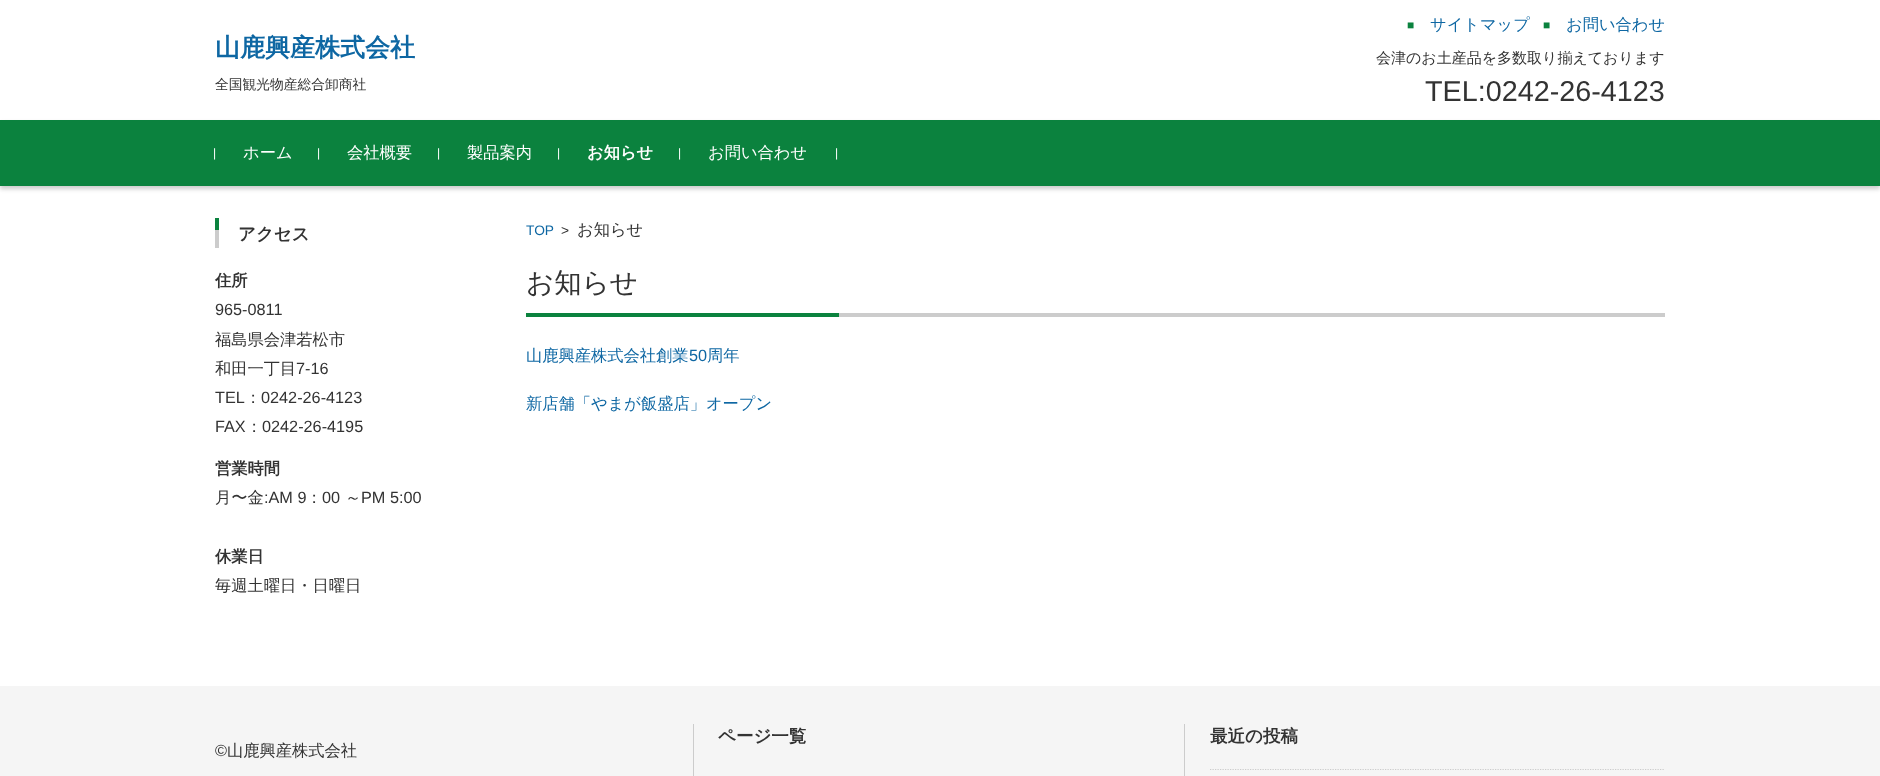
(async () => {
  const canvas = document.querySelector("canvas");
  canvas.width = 1880;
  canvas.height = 776;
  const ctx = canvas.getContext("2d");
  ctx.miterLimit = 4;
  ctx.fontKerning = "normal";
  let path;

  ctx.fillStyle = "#ffffff";
  ctx.fillRect(0, 0, 1880, 776);
  ctx.fillStyle = "rgba(0, 0, 0, 0.2)";
  ctx.filter = "blur(2px)";
  ctx.beginPath();
  ctx.rect(0, 123, 1880, 66);
  ctx.fill();
  ctx.filter = "none";
  for (const [x, y, w, h, color] of [
    [0, 120, 1880, 66, "#0b823e"],
    [215, 230, 4, 18, "#cccccc"],
    [215, 218, 4, 12, "#0b823e"],
    [839, 313, 826, 4, "#cccccc"],
    [526, 313, 313, 4, "#0b823e"],
    [0, 686, 1880, 90, "#f5f5f5"],
    [1184, 724, 1, 52, "#cccccc"],
  ]) {
    ctx.fillStyle = color;
    ctx.fillRect(x, y, w, h);
  }
  path = new Path2D("M1210 769.5H1664");
  ctx.strokeStyle = "#cccccc";
  ctx.lineWidth = 1.2;
  ctx.setLineDash([1.25, 1.25]);
  ctx.stroke(path);
  ctx.fillRect(693, 724, 1, 52);
  ctx.font = "bold 25px WenQuanYi Zen Hei";
  ctx.fillStyle = "#0e67a3";
  ctx.fillText("山鹿興産株式会社", 215, 56);
  ctx.font = "500 13.75px WenQuanYi Zen Hei";
  ctx.fillStyle = "#333333";
  ctx.fillText("全国観光物産総合卸商社", 215, 89);
  ctx.font = "12px Liberation Sans";
  ctx.fillStyle = "#0b823e";
  ctx.fillText("■", 1407, 29);
  ctx.font = "500 16.25px WenQuanYi Zen Hei";
  ctx.fillStyle = "#0e67a3";
  ctx.fillText("サイトマップ", 1430, 30);
  ctx.font = "12px Liberation Sans";
  ctx.fillStyle = "#0b823e";
  ctx.fillText("■", 1543, 29);
  ctx.font = "500 16.25px WenQuanYi Zen Hei";
  ctx.fillStyle = "#0e67a3";
  ctx.fillText("お問い合わせ", 1566, 30);
  ctx.font = "500 15px WenQuanYi Zen Hei";
  ctx.fillStyle = "#333333";
  ctx.fillText("会津のお土産品を多数取り揃えております", 1376, 63);
  ctx.font = "28.75px Liberation Sans";
  ctx.fillText("TEL:0242-26-4123", 1425, 101);
  ctx.font = "12px Liberation Sans";
  ctx.fillStyle = "#ffffff";
  ctx.fillText("|", 213, 157);
  ctx.font = "500 16.25px WenQuanYi Zen Hei";
  ctx.fillText("ホーム", 243, 158);
  ctx.font = "12px Liberation Sans";
  ctx.fillText("|", 317, 157);
  ctx.font = "500 16.25px WenQuanYi Zen Hei";
  ctx.fillText("会社概要", 347, 158);
  ctx.font = "12px Liberation Sans";
  ctx.fillText("|", 437, 157);
  ctx.font = "500 16.25px WenQuanYi Zen Hei";
  ctx.fillText("製品案内", 467, 158);
  ctx.font = "12px Liberation Sans";
  ctx.fillText("|", 557, 157);
  ctx.font = "bold 16.25px WenQuanYi Zen Hei";
  ctx.fillText("お知らせ", 587, 158);
  ctx.font = "12px Liberation Sans";
  ctx.fillText("|", 678, 157);
  ctx.font = "500 16.25px WenQuanYi Zen Hei";
  ctx.fillText("お問い合わせ", 708, 158);
  ctx.font = "12px Liberation Sans";
  ctx.fillText("|", 835, 157);
  ctx.font = "bold 17.5px WenQuanYi Zen Hei";
  ctx.fillStyle = "#333333";
  ctx.fillText("アクセス", 238, 240);
  ctx.font = "bold 16.25px WenQuanYi Zen Hei";
  ctx.fillText("住所", 215, 286);
  ctx.font = "16.25px Liberation Sans";
  ctx.fillText("965-0811", 215, 315);
  ctx.font = "500 16.25px WenQuanYi Zen Hei";
  ctx.fillText("福島県会津若松市", 215, 345);
  ctx.fillText("和田一丁目", 215, 374);
  ctx.font = "16.25px Liberation Sans";
  ctx.fillText("7-16", 296, 374);
  ctx.fillText("TEL", 215, 403);
  ctx.font = "500 16.25px WenQuanYi Zen Hei";
  ctx.fillText("：", 245, 403);
  ctx.font = "16.25px Liberation Sans";
  ctx.fillText("0242-26-4123", 261, 403);
  ctx.fillText("FAX", 215, 432);
  ctx.font = "500 16.25px WenQuanYi Zen Hei";
  ctx.fillText("：", 246, 432);
  ctx.font = "16.25px Liberation Sans";
  ctx.fillText("0242-26-4195", 262, 432);
  ctx.font = "bold 16.25px WenQuanYi Zen Hei";
  ctx.fillText("営業時間", 215, 474);
  ctx.font = "500 16.25px WenQuanYi Zen Hei";
  ctx.fillText("月〜金", 215, 503);
  ctx.font = "16.25px Liberation Sans";
  ctx.fillText(":AM 9", 264, 503);
  ctx.font = "500 16.25px WenQuanYi Zen Hei";
  ctx.fillText("：", 306, 503);
  ctx.font = "16.25px Liberation Sans";
  ctx.fillText("00", 322, 503);
  ctx.font = "500 16.25px WenQuanYi Zen Hei";
  ctx.fillText("～", 345, 503);
  ctx.font = "16.25px Liberation Sans";
  ctx.fillText("PM 5:00", 361, 503);
  ctx.font = "bold 16.25px WenQuanYi Zen Hei";
  ctx.fillText("休業日", 215, 562);
  ctx.font = "500 16.25px WenQuanYi Zen Hei";
  ctx.fillText("毎週土曜日・日曜日", 215, 591);
  ctx.font = "13.75px Liberation Sans";
  ctx.fillStyle = "#0e67a3";
  ctx.fillText("TOP", 526, 235);
  ctx.fillStyle = "#333333";
  ctx.fillText(">", 561, 235);
  ctx.font = "500 16.25px WenQuanYi Zen Hei";
  ctx.fillText("お知らせ", 577, 235);
  ctx.font = "500 27.5px WenQuanYi Zen Hei";
  ctx.fillText("お知らせ", 526, 292);
  ctx.font = "500 16.25px WenQuanYi Zen Hei";
  ctx.fillStyle = "#0e67a3";
  ctx.fillText("山鹿興産株式会社創業", 526, 361);
  ctx.font = "16.25px Liberation Sans";
  ctx.fillText("50", 689, 361);
  ctx.font = "500 16.25px WenQuanYi Zen Hei";
  ctx.fillText("周年", 707, 361);
  ctx.fillText("新店舗「やまが飯盛店」オープン", 526, 409);
  ctx.font = "bold 17.5px WenQuanYi Zen Hei";
  ctx.fillStyle = "#333333";
  ctx.fillText("ページ一覧", 718, 742);
  ctx.fillText("最近の投稿", 1210, 742);
  ctx.font = "16.25px Liberation Sans";
  ctx.fillText("©", 215, 756);
  ctx.font = "500 16.25px WenQuanYi Zen Hei";
  ctx.fillText("山鹿興産株式会社", 227, 756);
})();
